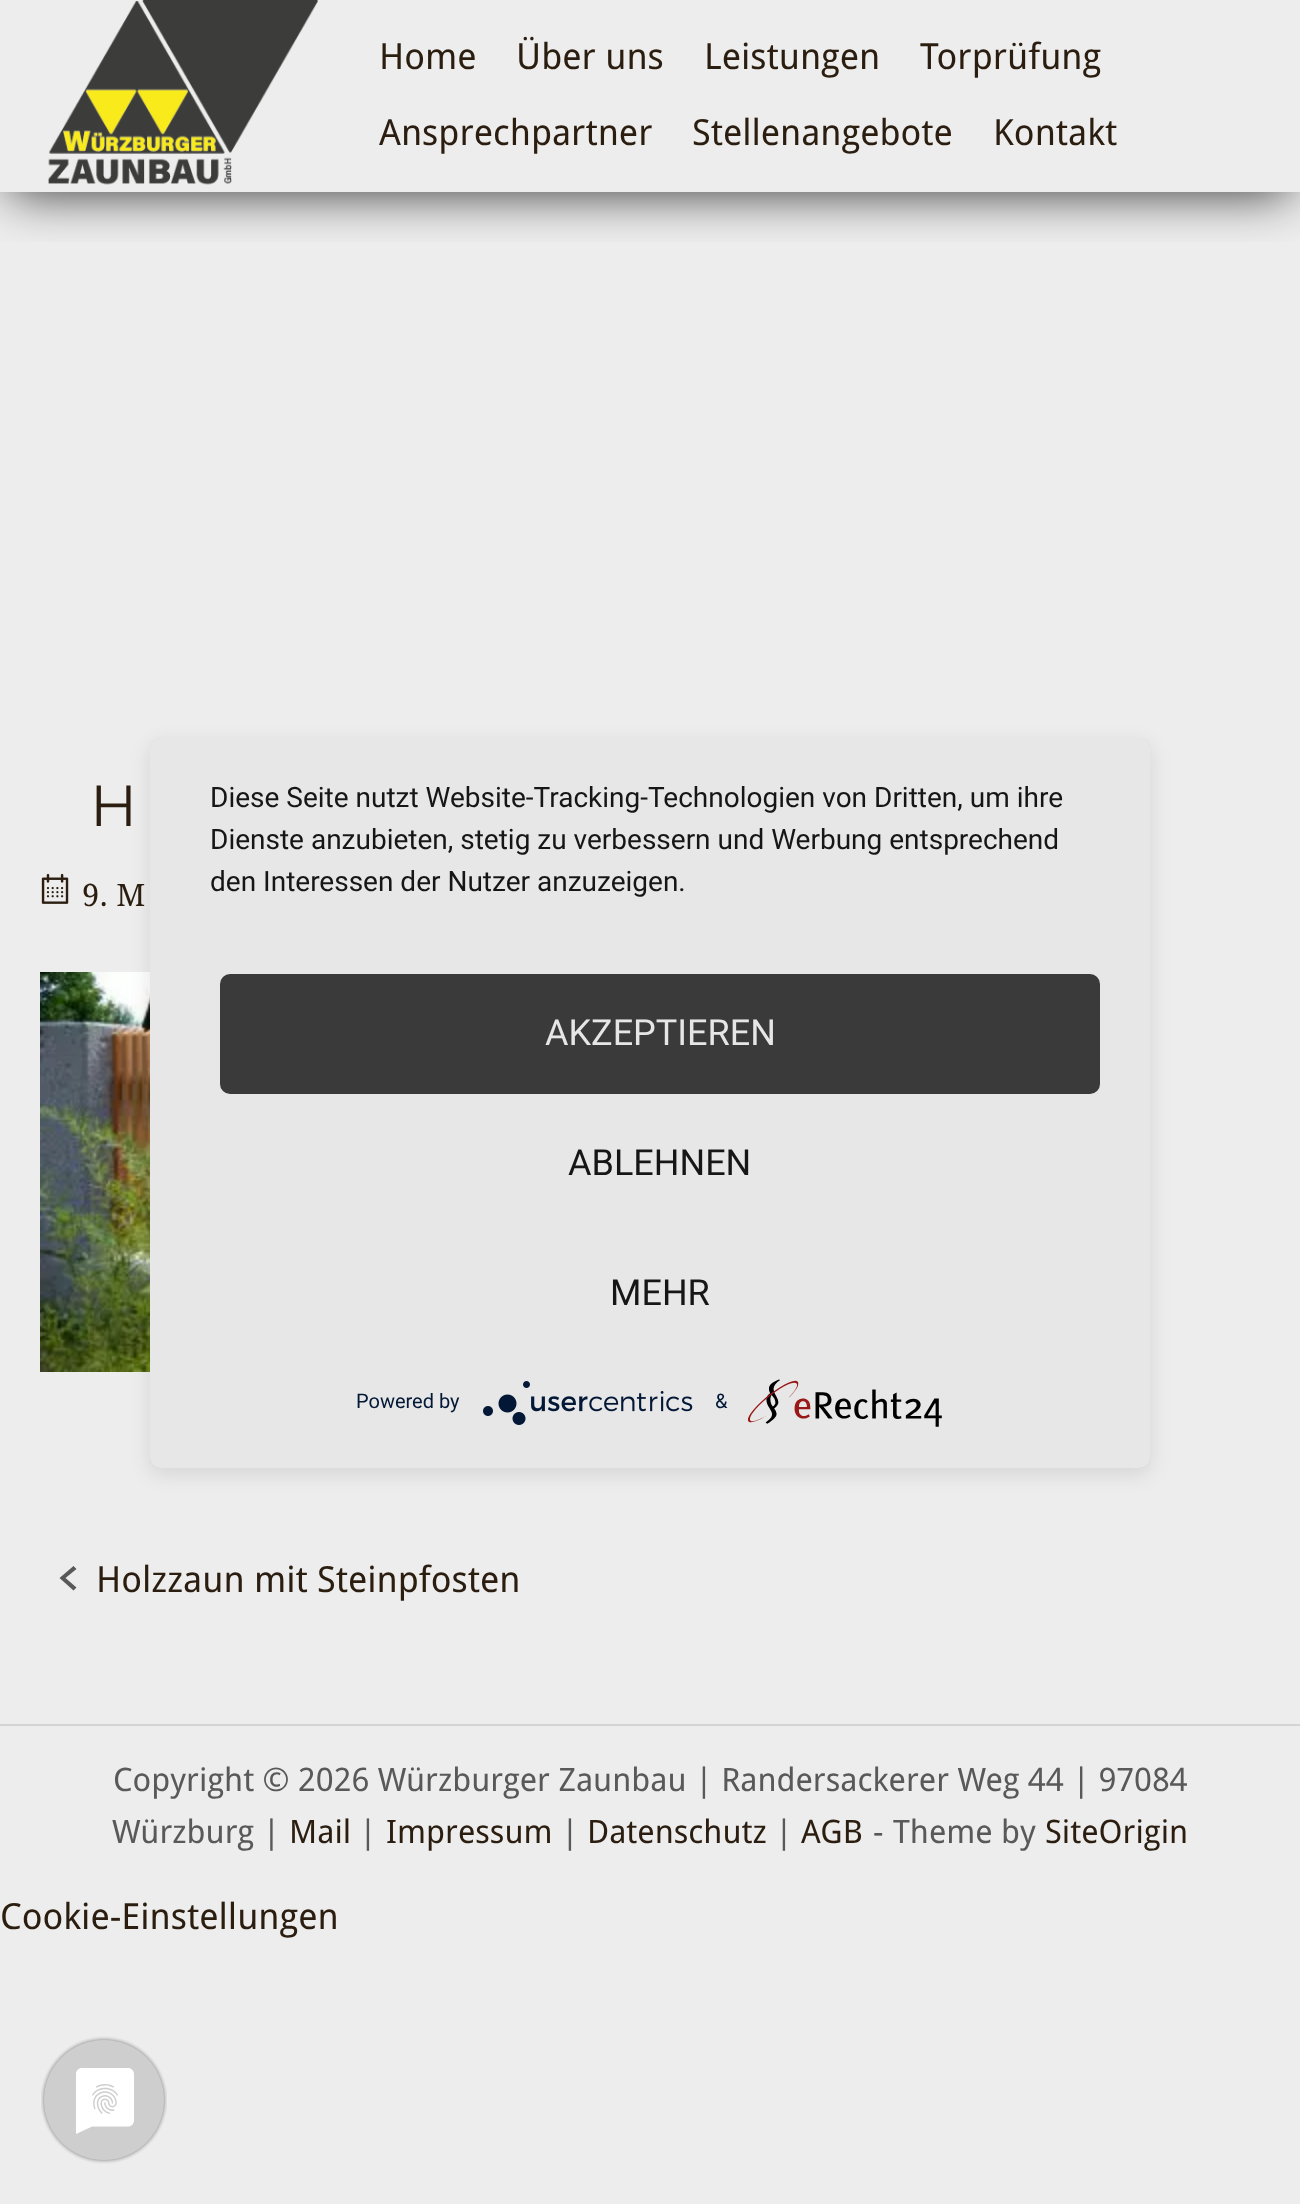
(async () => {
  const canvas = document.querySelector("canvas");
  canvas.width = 1300;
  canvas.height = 2204;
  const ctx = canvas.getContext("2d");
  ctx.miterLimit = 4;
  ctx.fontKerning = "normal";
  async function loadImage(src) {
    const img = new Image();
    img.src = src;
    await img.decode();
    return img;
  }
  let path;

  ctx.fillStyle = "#ededed";
  ctx.fillRect(0, 0, 1300, 2204);
  ctx.save();
  ctx.beginPath();
  ctx.rect(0, 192, 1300, 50);
  ctx.clip();
  ctx.fillStyle = "rgba(0, 0, 0, 0.75)";
  ctx.filter = "blur(25px)";
  ctx.beginPath();
  ctx.rect(10, 22, 1280, 172);
  ctx.fill();
  ctx.filter = "none";
  ctx.restore();
  ctx.drawImage(await loadImage("img/1.png"), 48, 0, 270, 185);
  ctx.drawImage(await loadImage("img/2.png"), 41, 873, 28, 31);
  ctx.drawImage(await loadImage("img/3.png"), 40, 972, 110, 400);
  ctx.fillStyle = "#595959";
  path = new Path2D("M73.5 1590.5L59.5 1578L73.5 1566L76.5 1569L65.5 1578L76.5 1587.5Z");
  ctx.fill(path);
  ctx.fillStyle = "#d4d4d4";
  ctx.fillRect(0, 1724, 1300, 2);
  ctx.fillStyle = "rgba(0, 0, 0, 0.1)";
  ctx.filter = "blur(10px)";
  ctx.beginPath();
  ctx.roundRect(150, 744, 1000, 730, 10);
  ctx.fill();
  ctx.filter = "none";
  ctx.save();
  ctx.beginPath();
  ctx.roundRect(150, 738, 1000, 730, 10);
  ctx.clip();
  ctx.fillStyle = "rgba(0, 0, 0, 0.3)";
  ctx.filter = "blur(36px)";
  ctx.beginPath();
  ctx.rect(150, 750, 1000, 730);
  ctx.fill();
  ctx.filter = "none";
  ctx.restore();
  ctx.fillStyle = "#e7e7e7";
  ctx.beginPath();
  ctx.roundRect(150, 738, 1000, 730, 10);
  ctx.fill();
  ctx.fillStyle = "#3a3a3a";
  ctx.beginPath();
  ctx.roundRect(220, 974, 880, 120, 10);
  ctx.fill();
  ctx.drawImage(await loadImage("img/4.png"), 483, 1381, 210, 44);
  ctx.drawImage(await loadImage("img/5.png"), 748, 1379, 194, 48);
  ctx.drawImage(await loadImage("img/6.png"), 41, 2036, 126, 128);
  ctx.font = "36px Droid Sans";
  ctx.fillStyle = "#2b1e10";
  for (const [text, x, y] of [
    ["Home", 379, 69],
    ["Über uns", 516, 69],
    ["Leistungen", 704, 69],
    ["Torprüfung", 920, 69],
    ["Ansprechpartner", 379, 145],
    ["Stellenangebote", 692, 145],
    ["Kontakt", 993, 145],
  ]) {
    ctx.fillText(text, x, y);
  }
  ctx.font = "100 58px Montserrat";
  ctx.fillText("H", 90, 826);
  ctx.font = "31px Droid Serif";
  ctx.fillText("9. M", 82, 906);
  ctx.font = "36px Droid Sans";
  ctx.fillText("Holzzaun mit Steinpfosten", 96, 1592);
  ctx.font = "32.4px Droid Sans";
  ctx.fillStyle = "#595959";
  ctx.fillText("Copyright © 2026 Würzburger Zaunbau | Randersackerer Weg 44 | 97084", 113, 1791);
  ctx.fillText("Würzburg |", 112, 1843);
  ctx.fillStyle = "#2b1e10";
  ctx.fillText("Mail", 289, 1843);
  ctx.fillStyle = "#595959";
  ctx.fillText("|", 359, 1843);
  ctx.fillStyle = "#2b1e10";
  ctx.fillText("Impressum", 386, 1843);
  ctx.fillStyle = "#595959";
  ctx.fillText("|", 561, 1843);
  ctx.fillStyle = "#2b1e10";
  ctx.fillText("Datenschutz", 587, 1843);
  ctx.fillStyle = "#595959";
  ctx.fillText("|", 775, 1843);
  ctx.fillStyle = "#2b1e10";
  ctx.fillText("AGB", 801, 1843);
  ctx.fillStyle = "#595959";
  ctx.fillText("-", 873, 1843);
  ctx.fillText("Theme by", 893, 1843);
  ctx.fillStyle = "#2b1e10";
  ctx.fillText("SiteOrigin", 1045, 1843);
  ctx.font = "28px Roboto";
  ctx.fillStyle = "#161616";
  for (const [text, x, y] of [
    ["Diese Seite nutzt Website-Tracking-Technologien von Dritten, um ihre", 210, 807],
    ["Dienste anzubieten, stetig zu verbessern und Werbung entsprechend", 210, 849],
    ["den Interessen der Nutzer anzuzeigen.", 210, 891],
  ]) {
    ctx.fillText(text, x, y);
  }
  ctx.font = "36px Roboto";
  ctx.fillStyle = "#e6e6e6";
  ctx.fillText("AKZEPTIEREN", 545, 1045);
  ctx.fillStyle = "#161616";
  ctx.fillText("ABLEHNEN", 568, 1175);
  ctx.fillText("MEHR", 610, 1305);
  ctx.font = "20px Roboto";
  ctx.fillStyle = "#021836";
  ctx.fillText("Powered by", 356, 1408);
  ctx.fillText("&", 715, 1408);
  ctx.font = "36px Droid Sans";
  ctx.fillStyle = "#2b1e10";
  ctx.fillText("Cookie-Einstellungen", 0, 1929);
})();
